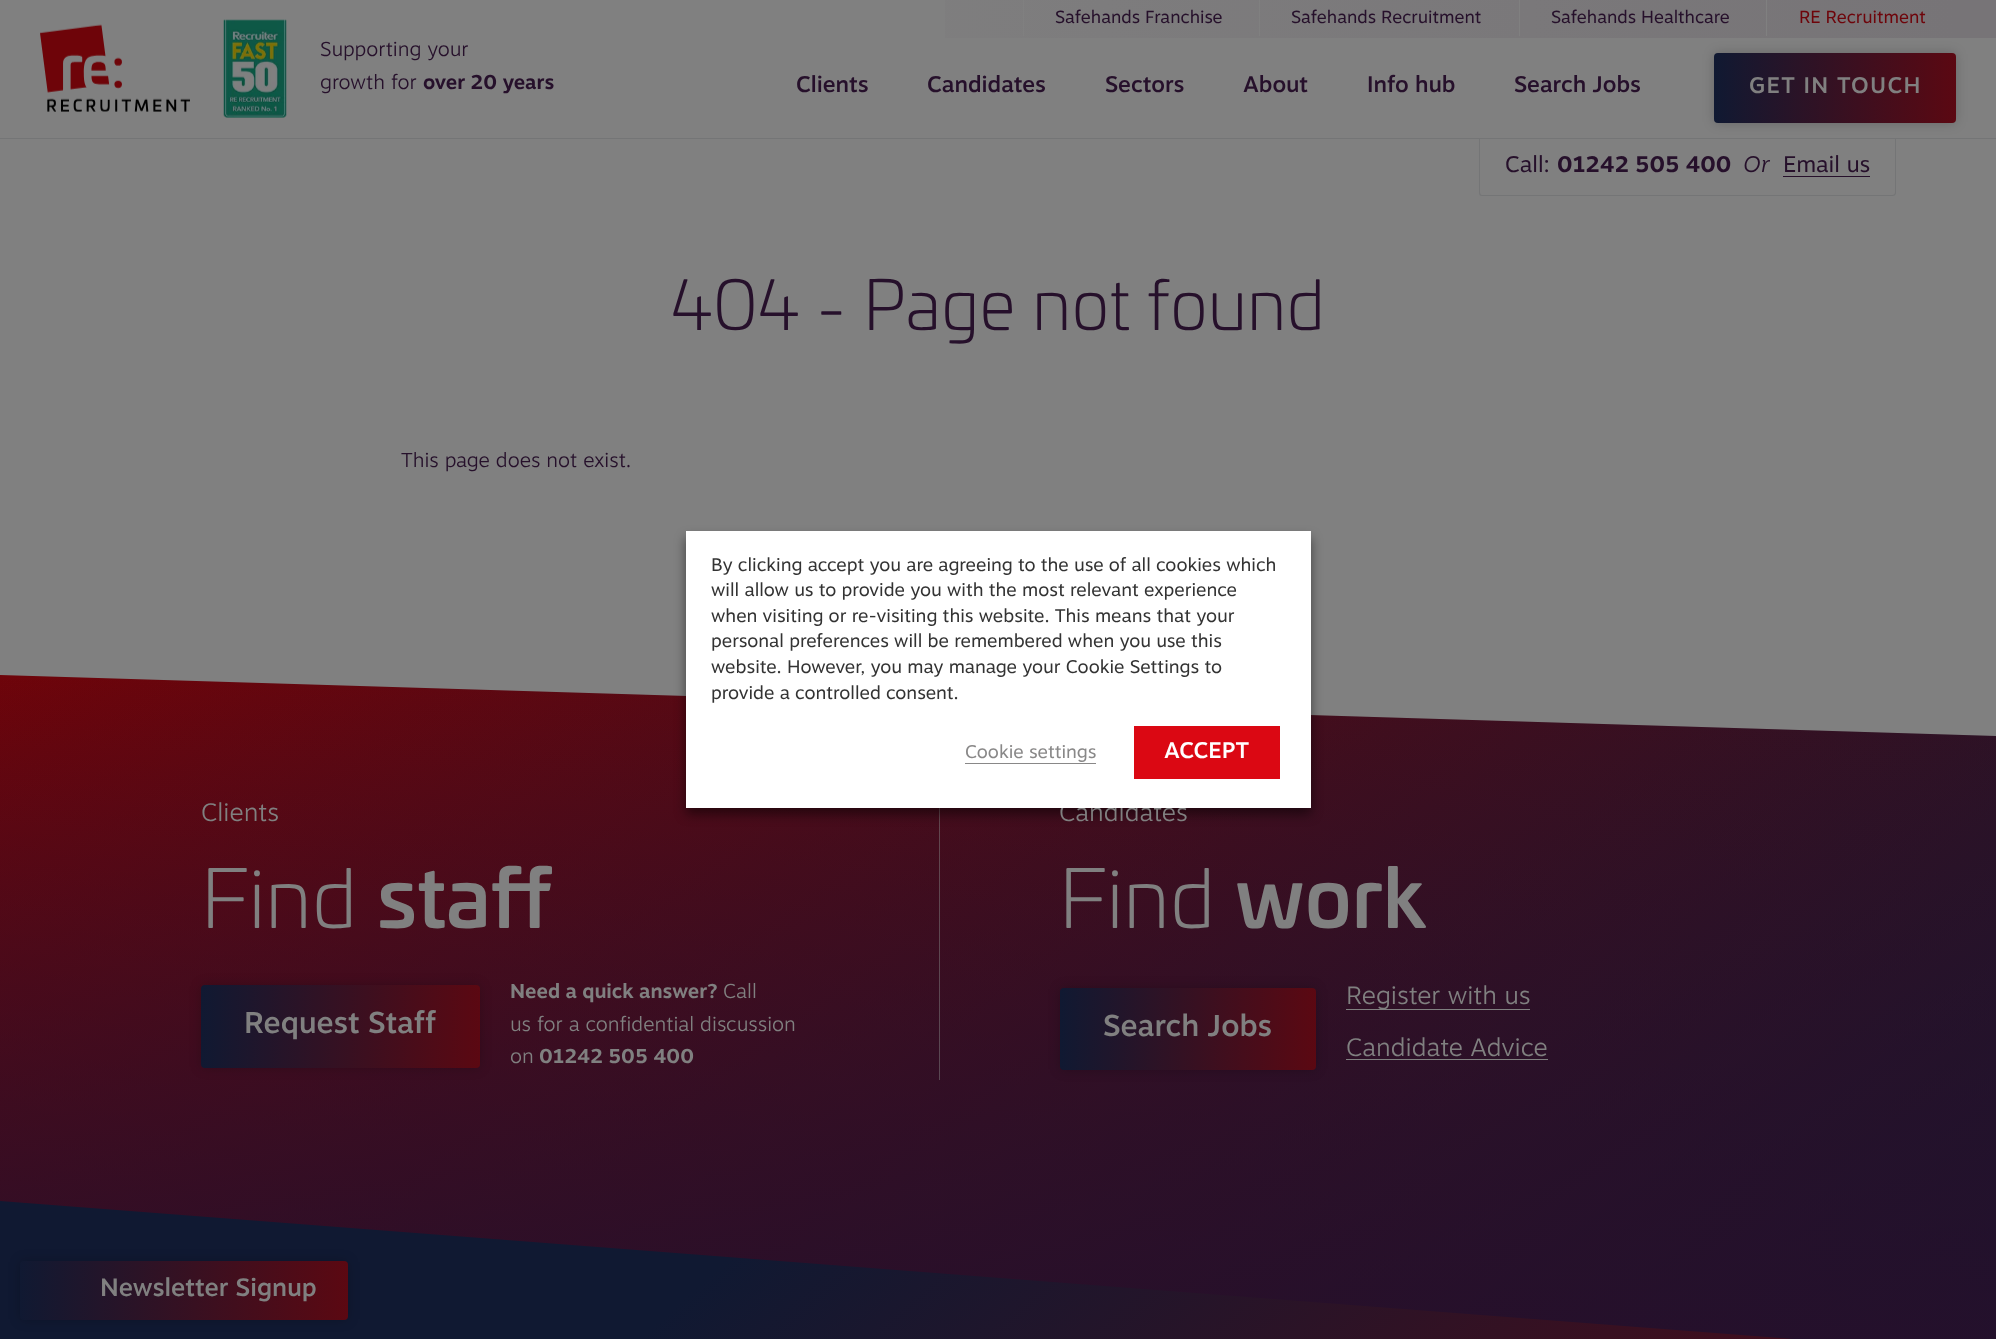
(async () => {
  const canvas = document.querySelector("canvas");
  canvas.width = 1996;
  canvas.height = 1339;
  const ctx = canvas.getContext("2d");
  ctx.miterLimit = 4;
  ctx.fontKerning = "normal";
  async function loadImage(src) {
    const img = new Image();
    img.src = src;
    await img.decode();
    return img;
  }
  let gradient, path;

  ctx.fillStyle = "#808080";
  ctx.fillRect(0, 0, 1996, 1339);
  ctx.fillStyle = "#747576";
  ctx.fillRect(0, 138, 1996, 1);
  ctx.drawImage(await loadImage("img/1.png"), 40, 24, 150, 88);
  ctx.drawImage(await loadImage("img/2.png"), 223, 19, 64, 99);
  gradient = ctx.createLinearGradient(679, 19, 1956, 19);
  gradient.addColorStop(0, "#808080");
  gradient.addColorStop(1, "#777477");
  ctx.fillStyle = gradient;
  ctx.fillRect(945, 0, 1011, 38);
  for (const [x, y, w, h, color] of [
    [1023, 0, 1, 36, "#808080"],
    [1259, 0, 1, 36, "#808080"],
    [1519, 0, 1, 36, "#808080"],
    [1766, 0, 1, 36, "#808080"],
    [1956, 0, 40, 38, "#777477"],
  ]) {
    ctx.fillStyle = color;
    ctx.fillRect(x, y, w, h);
  }
  ctx.fillStyle = "#747576";
  path = new Path2D("M1479 139H1896V192C1896 195 1895 196 1892 196H1482C1480 196 1479 195 1479 192ZM1480 139H1895V192C1895 194 1894 195 1892 195H1482C1481 195 1480 194 1480 192Z");
  ctx.fill(path, "evenodd");
  ctx.fillStyle = "rgba(0, 0, 0, 0.2)";
  ctx.filter = "blur(6px)";
  ctx.beginPath();
  ctx.roundRect(1714, 53, 242, 70, 4);
  ctx.fill();
  ctx.filter = "none";
  gradient = ctx.createLinearGradient(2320, 87, 1714, 88);
  gradient.addColorStop(0, "#101932");
  gradient.addColorStop(0.5, "#6e040a");
  gradient.addColorStop(1, "#101932");
  ctx.fillStyle = gradient;
  ctx.beginPath();
  ctx.roundRect(1714, 53, 242, 70, 4);
  ctx.fill();
  ctx.fillStyle = "#26102b";
  ctx.fillRect(1783, 176, 87, 1);
  gradient = ctx.createLinearGradient(484, 332, 1512, 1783);
  gradient.addColorStop(0, "#6e040a");
  gradient.addColorStop(1, "#101932");
  ctx.fillStyle = gradient;
  path = new Path2D("M0 675V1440H1996V736Z");
  ctx.fill(path);
  gradient = ctx.createLinearGradient(998, 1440, 998, 675);
  gradient.addColorStop(0, "#260f2b");
  gradient.addColorStop(1, "rgba(38, 15, 43, 0)");
  ctx.fillStyle = gradient;
  path = new Path2D("M0 675V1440H1996V736Z");
  ctx.fill(path);
  ctx.fillStyle = "rgba(0, 0, 0, 0.2)";
  ctx.filter = "blur(6px)";
  ctx.beginPath();
  ctx.roundRect(201, 985, 279, 83, 4);
  ctx.fill();
  ctx.filter = "none";
  gradient = ctx.createLinearGradient(898, 1026, 201, 1026);
  gradient.addColorStop(0, "#101932");
  gradient.addColorStop(0.5, "#6e040a");
  gradient.addColorStop(1, "#101932");
  ctx.fillStyle = gradient;
  ctx.beginPath();
  ctx.roundRect(201, 985, 279, 83, 4);
  ctx.fill();
  ctx.fillStyle = "rgba(128, 128, 128, 0.5)";
  ctx.fillRect(939, 808, 1, 272);
  ctx.fillStyle = "rgba(0, 0, 0, 0.2)";
  ctx.filter = "blur(6px)";
  ctx.beginPath();
  ctx.roundRect(1060, 988, 256, 82, 4);
  ctx.fill();
  ctx.filter = "none";
  gradient = ctx.createLinearGradient(1701, 1029, 1060, 1029);
  gradient.addColorStop(0, "#101932");
  gradient.addColorStop(0.5, "#6e040a");
  gradient.addColorStop(1, "#101932");
  ctx.fillStyle = gradient;
  ctx.beginPath();
  ctx.roundRect(1060, 988, 256, 82, 4);
  ctx.fill();
  ctx.fillStyle = "#808080";
  ctx.fillRect(1346, 1009, 184, 1);
  ctx.fillRect(1346, 1059, 202, 1);
  gradient = ctx.createLinearGradient(330, 909, 1666, 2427);
  gradient.addColorStop(0.26, "#101932");
  gradient.addColorStop(1, "#6e040a");
  ctx.fillStyle = gradient;
  path = new Path2D("M0 1201V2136H1996L1936 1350Z");
  ctx.fill(path);
  ctx.fillStyle = "rgba(0, 0, 0, 0.5)";
  ctx.filter = "blur(6px)";
  ctx.beginPath();
  ctx.rect(686, 538, 625, 276);
  ctx.fill();
  ctx.filter = "none";
  ctx.fillStyle = "rgba(0, 0, 0, 0.2)";
  ctx.filter = "blur(6px)";
  ctx.beginPath();
  ctx.roundRect(20, 1261, 328, 59, 4);
  ctx.fill();
  ctx.filter = "none";
  gradient = ctx.createLinearGradient(839, 1291, 20, 1291);
  gradient.addColorStop(0, "#101932");
  gradient.addColorStop(0.5, "#6e040a");
  gradient.addColorStop(1, "#101932");
  ctx.fillStyle = gradient;
  ctx.beginPath();
  ctx.roundRect(20, 1261, 328, 59, 4);
  ctx.fill();
  ctx.font = "300 20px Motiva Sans";
  ctx.fillStyle = "#26102b";
  ctx.fillText("Supporting your", 320, 56);
  ctx.fillText("growth for", 320, 89);
  ctx.font = "bold 20px Motiva Sans";
  ctx.fillText("over 20 years", 423, 89);
  ctx.font = "17.5px Motiva Sans";
  for (const [text, x, y] of [
    ["Safehands Franchise", 1055, 23],
    ["Safehands Recruitment", 1291, 23],
    ["Safehands Healthcare", 1551, 23],
  ]) {
    ctx.fillText(text, x, y);
  }
  ctx.fillStyle = "#6e040a";
  ctx.fillText("RE Recruitment", 1799, 23);
  ctx.font = "500 22.5px Motiva Sans";
  ctx.fillStyle = "#26102b";
  for (const [text, x, y] of [
    ["Clients", 796, 92],
    ["Candidates", 927, 92],
    ["Sectors", 1105, 92],
    ["About", 1243, 92],
    ["Info hub", 1367, 92],
    ["Search Jobs", 1514, 92],
  ]) {
    ctx.fillText(text, x, y);
  }
  ctx.letterSpacing = "1.25px";
  ctx.fillStyle = "#808080";
  ctx.fillText("GET IN TOUCH", 1749, 93);
  ctx.letterSpacing = "0px";
  ctx.font = "22.5px Motiva Sans";
  ctx.fillStyle = "#26102b";
  ctx.fillText("Call:", 1505, 172);
  ctx.font = "bold 22.5px Motiva Sans";
  ctx.fillText("01242 505 400", 1557, 172);
  ctx.font = "italic 300 22.5px Motiva Sans";
  ctx.fillText("Or", 1743, 172);
  ctx.font = "22.5px Motiva Sans";
  ctx.fillText("Email us", 1783, 172);
  ctx.font = "300 68.6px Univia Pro";
  ctx.fillText("404 - Page not found", 671, 330);
  ctx.font = "300 20px Motiva Sans";
  ctx.fillText("This page does not exist.", 401, 467);
  ctx.font = "300 25px Motiva Sans";
  ctx.fillStyle = "#808080";
  ctx.fillText("Clients", 201, 821);
  ctx.font = "300 81px Univia Pro";
  ctx.fillText("Find", 201, 928);
  ctx.font = "500 81px Univia Pro";
  ctx.fillText("staff", 377, 928);
  ctx.font = "500 30px Motiva Sans";
  ctx.fillText("Request Staff", 244, 1033);
  ctx.font = "bold 20px Motiva Sans";
  ctx.fillText("Need a quick answer?", 510, 998);
  ctx.font = "300 20px Motiva Sans";
  for (const [text, x, y] of [
    ["Call", 723, 998],
    ["us for a confidential discussion", 510, 1031],
    ["on", 510, 1063],
  ]) {
    ctx.fillText(text, x, y);
  }
  ctx.font = "bold 20px Motiva Sans";
  ctx.fillText("01242 505 400", 539, 1063);
  ctx.font = "300 25px Motiva Sans";
  ctx.fillText("Candidates", 1059, 821);
  ctx.font = "300 81px Univia Pro";
  ctx.fillText("Find", 1059, 928);
  ctx.font = "500 81px Univia Pro";
  ctx.fillText("work", 1235, 928);
  ctx.font = "500 30px Motiva Sans";
  ctx.fillText("Search Jobs", 1103, 1036);
  ctx.font = "300 25px Motiva Sans";
  ctx.fillText("Register with us", 1346, 1004);
  ctx.fillText("Candidate Advice", 1346, 1056);
  ctx.fillStyle = "#ffffff";
  ctx.fillRect(686, 531, 625, 277);
  ctx.font = "18.3px Motiva Sans";
  ctx.fillStyle = "#333333";
  for (const [text, x, y] of [
    ["By clicking accept you are agreeing to the use of all cookies which", 711, 571],
    ["will allow us to provide you with the most relevant experience", 711, 596],
    ["when visiting or re-visiting this website. This means that your", 711, 622],
    ["personal preferences will be remembered when you use this", 711, 647],
    ["website. However, you may manage your Cookie Settings to", 711, 673],
    ["provide a controlled consent.", 711, 699],
  ]) {
    ctx.fillText(text, x, y);
  }
  ctx.fillStyle = "#898888";
  ctx.fillText("Cookie settings", 965, 758);
  ctx.fillRect(965, 763, 131, 1);
  ctx.fillStyle = "#db0813";
  ctx.fillRect(1134, 726, 146, 53);
  ctx.font = "500 22.5px Motiva Sans";
  ctx.fillStyle = "#ffffff";
  ctx.fillText("ACCEPT", 1164, 758);
  ctx.font = "500 25px Motiva Sans";
  ctx.fillStyle = "#808080";
  ctx.fillText("Newsletter Signup", 100, 1296);
})();
